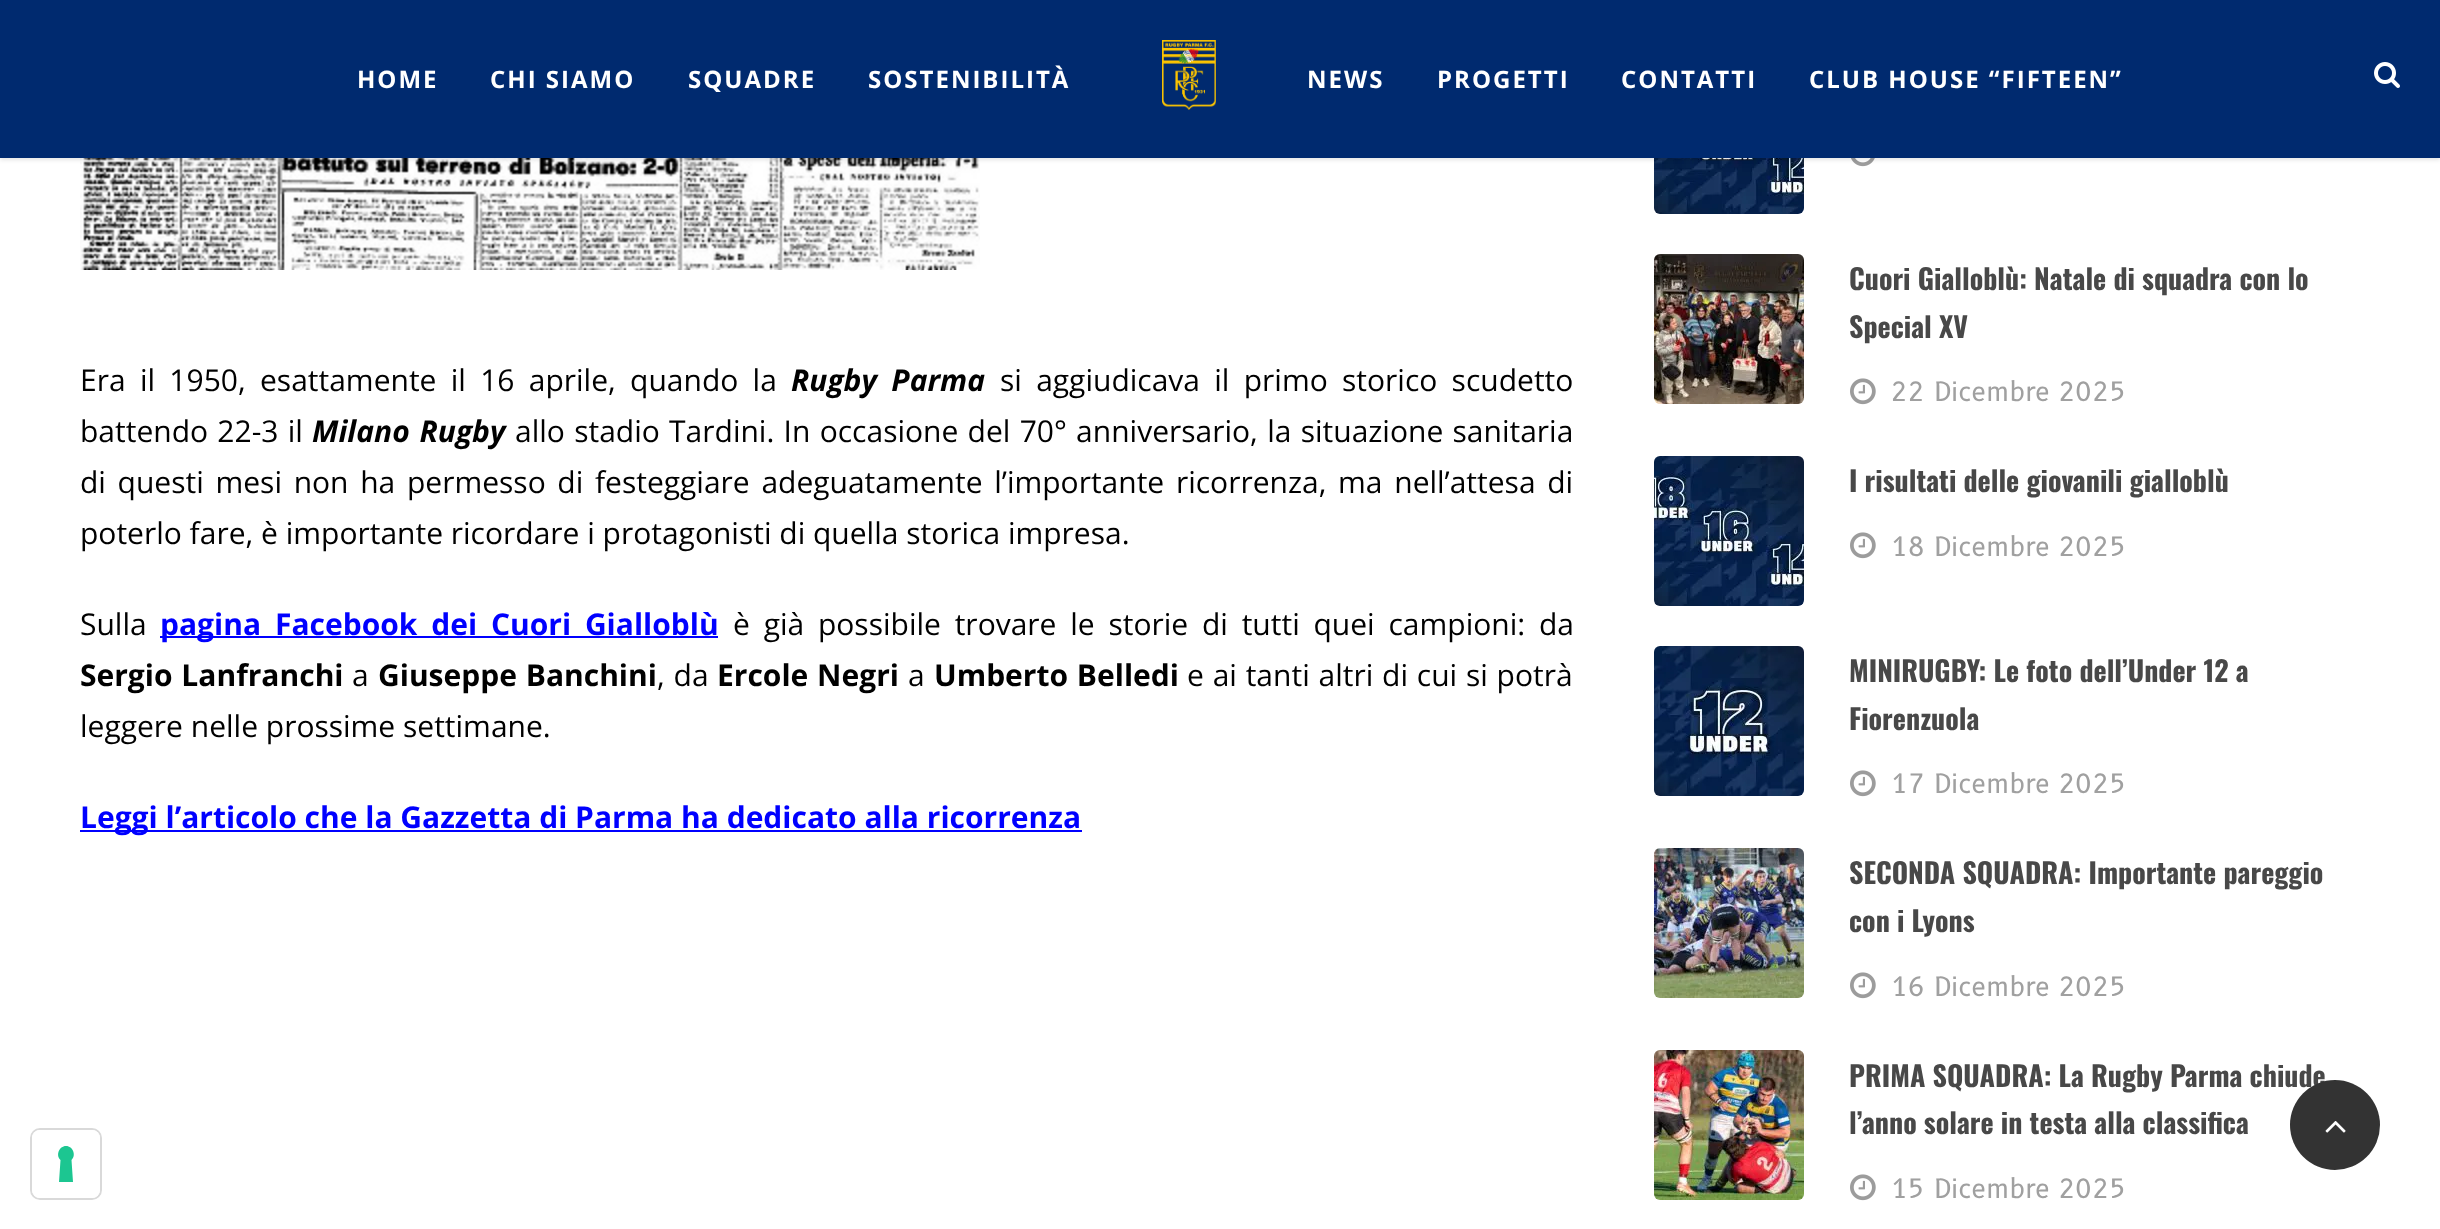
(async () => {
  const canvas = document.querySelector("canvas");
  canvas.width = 2440;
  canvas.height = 1229;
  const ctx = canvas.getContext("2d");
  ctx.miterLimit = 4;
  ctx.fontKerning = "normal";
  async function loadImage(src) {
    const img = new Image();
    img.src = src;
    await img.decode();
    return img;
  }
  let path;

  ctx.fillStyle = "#ffffff";
  ctx.fillRect(0, 0, 2440, 1229);
  ctx.drawImage(await loadImage("img/3.png"), 80, 158, 900, 112);
  ctx.drawImage(await loadImage("img/4.png"), 1654, 158, 150, 56);
  ctx.drawImage(await loadImage("img/5.png"), 1851, 158, 24, 9);
  ctx.fillStyle = "rgba(0, 0, 0, 0.1)";
  ctx.filter = "blur(2px)";
  ctx.beginPath();
  ctx.rect(0, 2, 2440, 158);
  ctx.fill();
  ctx.filter = "none";
  ctx.fillStyle = "#002a6f";
  ctx.fillRect(0, 0, 2440, 158);
  ctx.drawImage(await loadImage("img/1.png"), 1162, 40, 54, 70);
  ctx.drawImage(await loadImage("img/2.png"), 2374, 62, 26, 26);
  ctx.beginPath();
  ctx.roundRect(31, 1129, 70, 70, 9);
  ctx.strokeStyle = "#d9d9d9";
  ctx.lineWidth = 2;
  ctx.stroke();
  ctx.fillStyle = "#ffffff";
  ctx.beginPath();
  ctx.roundRect(32, 1130, 68, 68, 8);
  ctx.fill();
  ctx.fillStyle = "#1cc691";
  path = new Path2D("M66 1146C73 1146 76.5 1155.5 71.5 1160L73 1182H59L60.5 1160C55.5 1155.5 59 1146 66 1146Z");
  ctx.fill(path, "evenodd");
  ctx.fillStyle = "#0000ff";
  ctx.fillRect(160, 636, 558, 2);
  ctx.fillRect(80, 830, 1002, 2);
  ctx.drawImage(await loadImage("img/6.png"), 1654, 254, 150, 150);
  ctx.drawImage(await loadImage("img/7.png"), 1850, 378, 26, 27);
  ctx.drawImage(await loadImage("img/8.png"), 1654, 456, 150, 150);
  ctx.drawImage(await loadImage("img/7.png"), 1850, 532, 26, 27);
  ctx.drawImage(await loadImage("img/9.png"), 1654, 646, 150, 150);
  ctx.drawImage(await loadImage("img/7.png"), 1850, 770, 26, 27);
  ctx.drawImage(await loadImage("img/10.png"), 1654, 848, 150, 150);
  ctx.drawImage(await loadImage("img/7.png"), 1850, 972, 26, 27);
  ctx.drawImage(await loadImage("img/11.png"), 1654, 1050, 150, 150);
  ctx.drawImage(await loadImage("img/7.png"), 1850, 1174, 26, 27);
  ctx.letterSpacing = "2px";
  ctx.font = "bold 24px Open Sans";
  ctx.fillStyle = "#ffffff";
  for (const [text, x, y] of [
    ["HOME", 357, 88],
    ["CHI SIAMO", 490, 88],
    ["SQUADRE", 688, 88],
    ["SOSTENIBILITÀ", 868, 88],
    ["NEWS", 1307, 88],
    ["PROGETTI", 1437, 88],
    ["CONTATTI", 1621, 88],
    ["CLUB HOUSE “FIFTEEN”", 1809, 88],
  ]) {
    ctx.fillText(text, x, y);
  }
  ctx.letterSpacing = "0px";
  ctx.wordSpacing = "6.5px";
  ctx.font = "30px Open Sans";
  ctx.fillStyle = "#000000";
  ctx.fillText("Era il 1950, esattamente il 16 aprile, quando la", 80, 391);
  ctx.font = "italic bold 30px Open Sans";
  ctx.fillText("Rugby Parma", 791, 391);
  ctx.font = "30px Open Sans";
  ctx.fillText("si aggiudicava il primo storico scudetto", 1000, 391);
  ctx.wordSpacing = "1.5px";
  ctx.fillText("battendo 22-3 il", 80, 442);
  ctx.wordSpacing = "2px";
  ctx.font = "italic bold 30px Open Sans";
  ctx.fillText("Milano Rugby", 312, 442);
  ctx.wordSpacing = "1.5px";
  ctx.font = "30px Open Sans";
  ctx.fillText("allo stadio Tardini. In occasione del 70° anniversario, la situazione sanitaria", 515, 442);
  ctx.wordSpacing = "3.9px";
  ctx.fillText("di questi mesi non ha permesso di festeggiare adeguatamente l’importante ricorrenza, ma nell’attesa di", 80, 493);
  ctx.wordSpacing = "0px";
  ctx.fillText("poterlo fare, è importante ricordare i protagonisti di quella storica impresa.", 80, 544);
  ctx.fillText("Sulla", 80, 635);
  ctx.font = "bold 30px Open Sans";
  ctx.fillStyle = "#0000ff";
  ctx.fillText("pagina", 160, 635);
  ctx.wordSpacing = "6px";
  ctx.fillText("Facebook dei Cuori Gialloblù", 275, 635);
  ctx.font = "30px Open Sans";
  ctx.fillStyle = "#000000";
  ctx.fillText("è già possibile trovare le storie di tutti quei campioni: da", 733, 635);
  ctx.wordSpacing = "1px";
  ctx.font = "bold 30px Open Sans";
  ctx.fillText("Sergio Lanfranchi", 80, 686);
  ctx.wordSpacing = "0px";
  ctx.font = "30px Open Sans";
  ctx.fillText("a", 352, 686);
  ctx.wordSpacing = "1px";
  ctx.font = "bold 30px Open Sans";
  ctx.fillText("Giuseppe Banchini", 378, 686);
  ctx.font = "30px Open Sans";
  ctx.fillText(", da", 657, 686);
  ctx.font = "bold 30px Open Sans";
  ctx.fillText("Ercole Negri", 717, 686);
  ctx.wordSpacing = "0px";
  ctx.font = "30px Open Sans";
  ctx.fillText("a", 908, 686);
  ctx.wordSpacing = "1px";
  ctx.font = "bold 30px Open Sans";
  ctx.fillText("Umberto Belledi", 934, 686);
  ctx.font = "30px Open Sans";
  ctx.fillText("e ai tanti altri di cui si potrà", 1187, 686);
  ctx.wordSpacing = "0px";
  ctx.fillText("leggere nelle prossime settimane.", 80, 737);
  ctx.font = "bold 30px Open Sans";
  ctx.fillStyle = "#0000ff";
  ctx.fillText("Leggi l’articolo che la Gazzetta di Parma ha dedicato alla ricorrenza", 80, 828);
  ctx.font = "bold 28px Oswald";
  ctx.fillStyle = "#484848";
  ctx.fillText("Cuori Gialloblù: Natale di squadra con lo", 1849, 290);
  ctx.fillText("Special XV", 1849, 338);
  ctx.font = "26px 'B612'";
  ctx.fillStyle = "#a0a0a0";
  ctx.fillText("22 Dicembre 2025", 1891, 401);
  ctx.font = "bold 28px Oswald";
  ctx.fillStyle = "#484848";
  ctx.fillText("I risultati delle giovanili gialloblù", 1849, 492);
  ctx.font = "26px 'B612'";
  ctx.fillStyle = "#a0a0a0";
  ctx.fillText("18 Dicembre 2025", 1891, 556);
  ctx.font = "bold 28px Oswald";
  ctx.fillStyle = "#484848";
  ctx.fillText("MINIRUGBY: Le foto dell’Under 12 a", 1849, 682);
  ctx.fillText("Fiorenzuola", 1849, 730);
  ctx.font = "26px 'B612'";
  ctx.fillStyle = "#a0a0a0";
  ctx.fillText("17 Dicembre 2025", 1891, 793);
  ctx.font = "bold 28px Oswald";
  ctx.fillStyle = "#484848";
  ctx.fillText("SECONDA SQUADRA: Importante pareggio", 1849, 884);
  ctx.fillText("con i Lyons", 1849, 932);
  ctx.font = "26px 'B612'";
  ctx.fillStyle = "#a0a0a0";
  ctx.fillText("16 Dicembre 2025", 1891, 996);
  ctx.font = "bold 28px Oswald";
  ctx.fillStyle = "#484848";
  ctx.fillText("PRIMA SQUADRA: La Rugby Parma chiude", 1849, 1087);
  ctx.fillText("l’anno solare in testa alla classifica", 1849, 1134);
  ctx.font = "26px 'B612'";
  ctx.fillStyle = "#a0a0a0";
  ctx.fillText("15 Dicembre 2025", 1891, 1198);
  ctx.fillStyle = "#333333";
  ctx.beginPath();
  ctx.arc(2335, 1125, 45, 0, Math.PI * 2);
  ctx.fill();
  ctx.drawImage(await loadImage("img/12.png"), 2325, 1121, 21, 12);
})();
